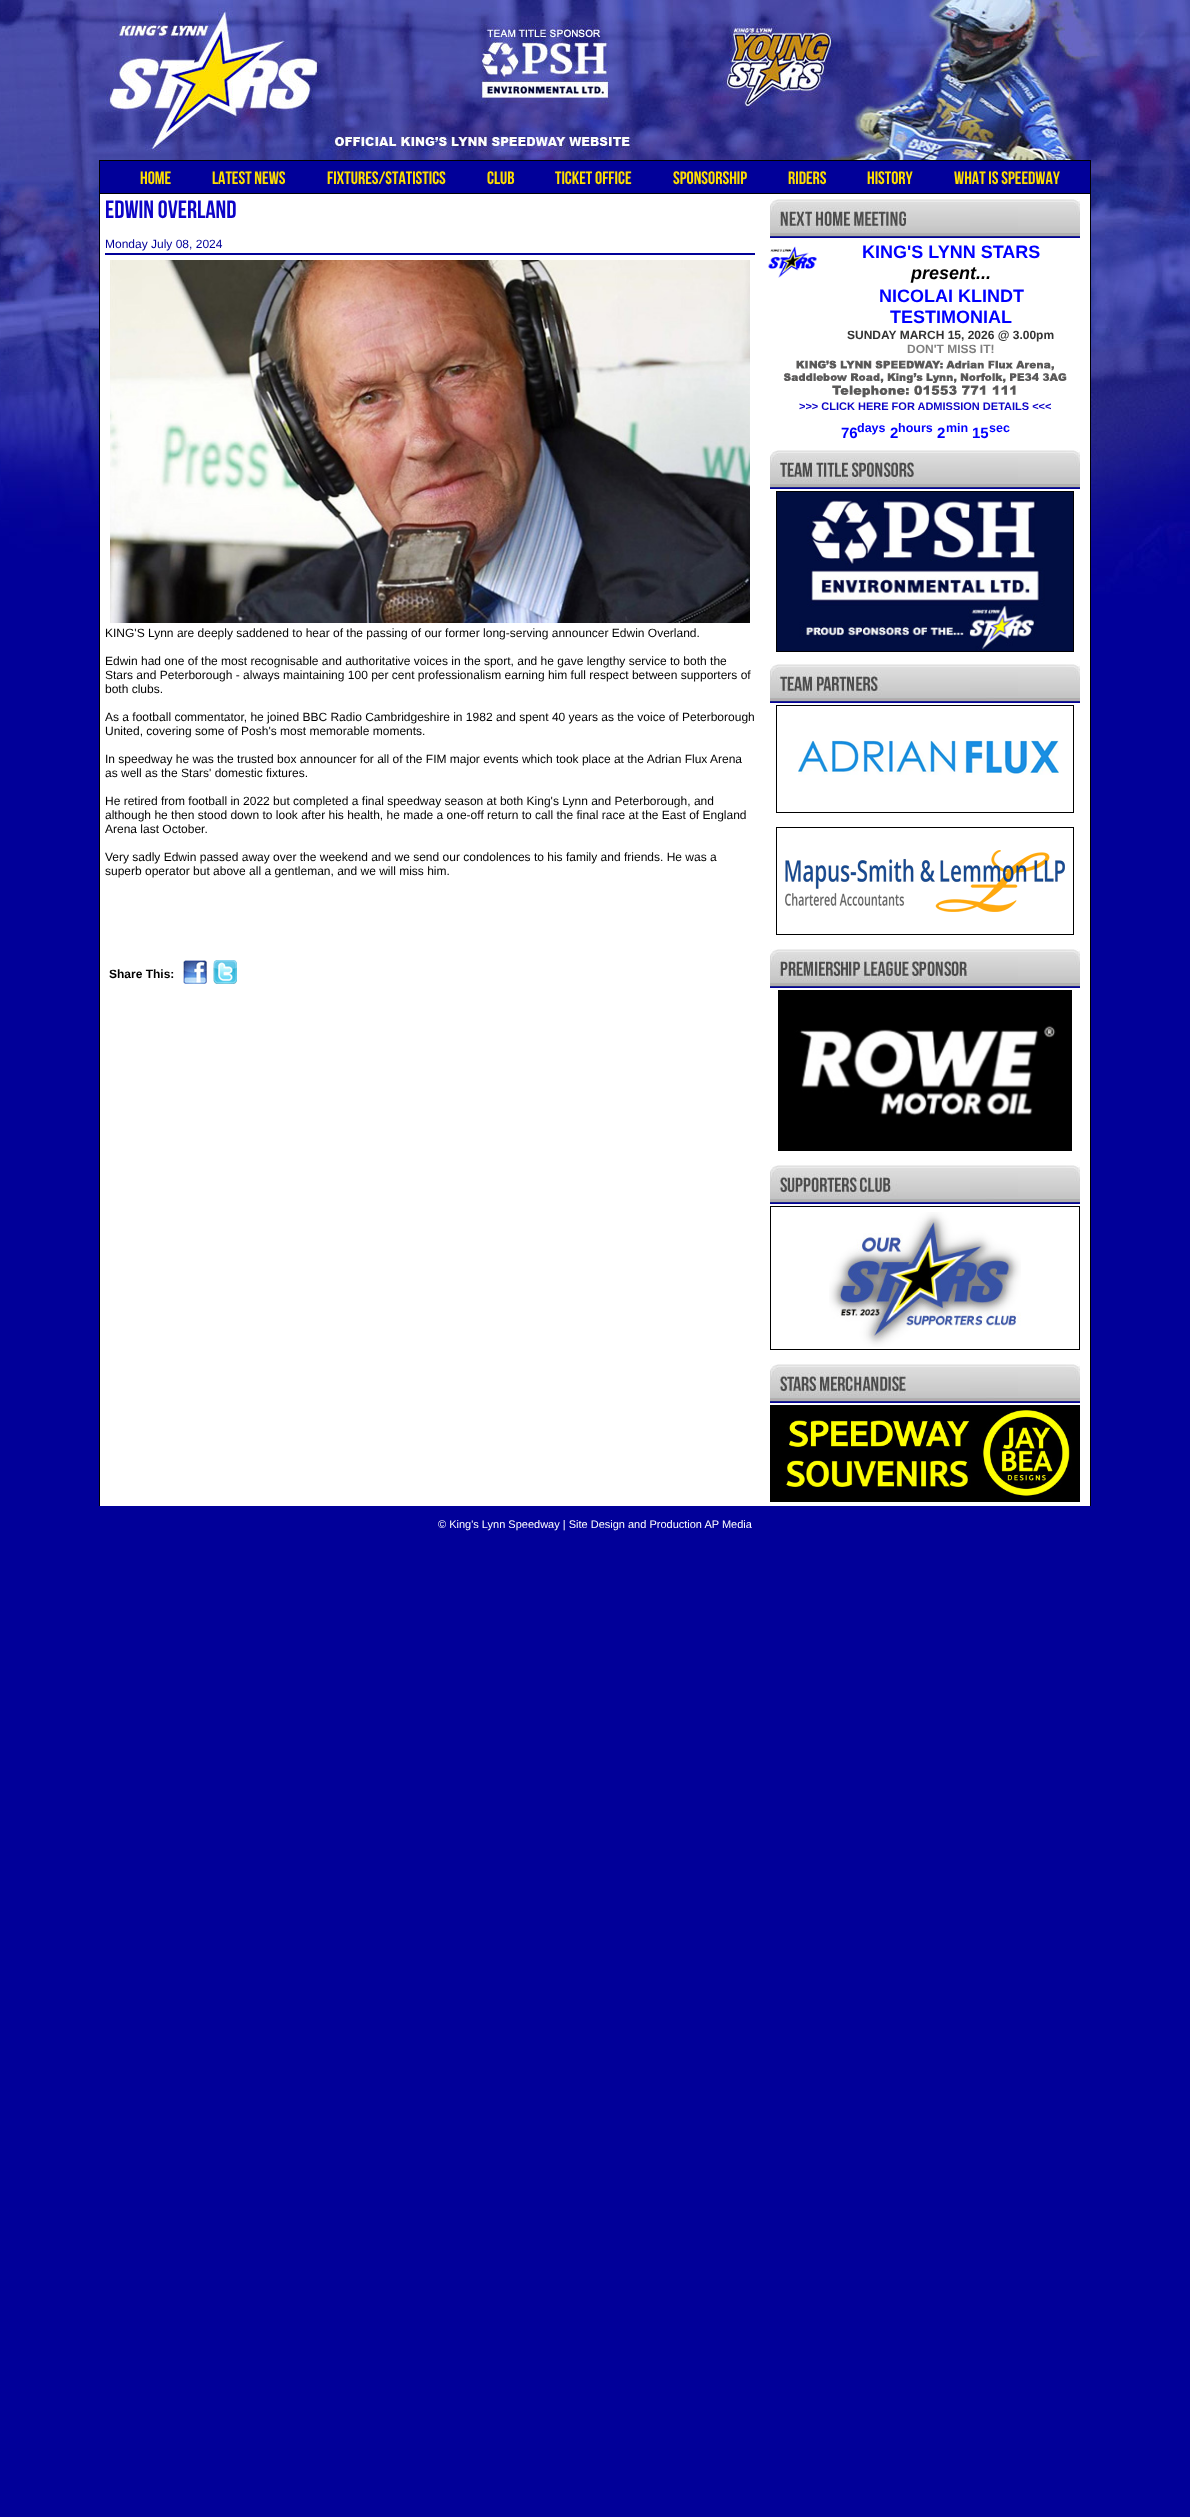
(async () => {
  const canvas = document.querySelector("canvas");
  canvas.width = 1190;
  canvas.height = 2517;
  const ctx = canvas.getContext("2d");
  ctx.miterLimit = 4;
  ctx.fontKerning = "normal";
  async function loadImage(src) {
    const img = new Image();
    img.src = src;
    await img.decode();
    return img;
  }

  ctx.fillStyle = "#010099";
  ctx.fillRect(0, 0, 1190, 2517);
  ctx.drawImage(await loadImage("img/1.png"), 0, 0, 1190, 594);
  for (const [x, y, w, h, color] of [
    [99, 160, 992, 1, "#000000"],
    [1090, 160, 1, 1346, "#000000"],
    [99, 193, 992, 1, "#000000"],
    [99, 160, 1, 1346, "#000000"],
    [100, 161, 990, 32, "#010099"],
    [100, 194, 990, 1312, "#ffffff"],
    [105, 253, 650, 2, "#010099"],
  ]) {
    ctx.fillStyle = color;
    ctx.fillRect(x, y, w, h);
  }
  ctx.drawImage(await loadImage("img/2.png"), 110, 260, 640, 363);
  ctx.drawImage(await loadImage("img/3.png"), 183, 960, 24, 24);
  ctx.drawImage(await loadImage("img/4.png"), 213, 960, 24, 24);
  ctx.drawImage(await loadImage("img/5.png"), 770, 199, 310, 39);
  ctx.drawImage(await loadImage("img/6.png"), 768, 246, 49, 32);
  ctx.drawImage(await loadImage("img/7.png"), 783, 360, 284, 38);
  ctx.drawImage(await loadImage("img/8.png"), 770, 450, 310, 39);
  ctx.strokeStyle = "#000000";
  ctx.strokeRect(776.5, 491.5, 297, 160);
  ctx.drawImage(await loadImage("img/9.png"), 777, 492, 296, 159);
  ctx.drawImage(await loadImage("img/10.png"), 770, 664, 310, 39);
  ctx.strokeRect(776.5, 705.5, 297, 107);
  ctx.drawImage(await loadImage("img/11.png"), 798, 740, 261, 35);
  ctx.strokeRect(776.5, 827.5, 297, 107);
  ctx.drawImage(await loadImage("img/12.png"), 785, 850, 280, 62);
  ctx.drawImage(await loadImage("img/13.png"), 770, 949, 310, 39);
  ctx.drawImage(await loadImage("img/14.png"), 778, 990, 294, 161);
  ctx.drawImage(await loadImage("img/15.png"), 770, 1165, 310, 39);
  ctx.strokeRect(770.5, 1206.5, 309, 143);
  ctx.drawImage(await loadImage("img/16.png"), 829, 1212, 192, 135);
  ctx.drawImage(await loadImage("img/17.png"), 770, 1364, 310, 39);
  ctx.drawImage(await loadImage("img/18.png"), 770, 1405, 310, 97);
  ctx.font = "18px Bebas Neue";
  ctx.fillStyle = "#ffde00";
  for (const [text, x, y] of [
    ["HOME", 140, 184],
    ["LATEST NEWS", 212, 184],
    ["FIXTURES/STATISTICS", 327, 184],
    ["CLUB", 487, 184],
    ["TICKET OFFICE", 555, 184],
    ["SPONSORSHIP", 673, 184],
    ["RIDERS", 788, 184],
    ["HISTORY", 867, 184],
    ["WHAT IS SPEEDWAY", 954, 184],
  ]) {
    ctx.fillText(text, x, y);
  }
  ctx.font = "25px Bebas Neue";
  ctx.fillStyle = "#0d04c7";
  ctx.fillText("EDWIN OVERLAND", 105, 218);
  ctx.font = "12px Liberation Sans";
  ctx.fillStyle = "#010099";
  ctx.fillText("Monday July 08, 2024", 105, 248);
  ctx.fillStyle = "#000000";
  for (const [text, x, y] of [
    ["KING'S Lynn are deeply saddened to hear of the passing of our former long-serving announcer Edwin Overland.", 105, 637],
    ["Edwin had one of the most recognisable and authoritative voices in the sport, and he gave lengthy service to both the", 105, 665],
    ["Stars and Peterborough - always maintaining 100 per cent professionalism earning him full respect between supporters of", 105, 679],
    ["both clubs.", 105, 693],
    ["As a football commentator, he joined BBC Radio Cambridgeshire in 1982 and spent 40 years as the voice of Peterborough", 105, 721],
    ["United, covering some of Posh's most memorable moments.", 105, 735],
    ["In speedway he was the trusted box announcer for all of the FIM major events which took place at the Adrian Flux Arena", 105, 763],
    ["as well as the Stars' domestic fixtures.", 105, 777],
    ["He retired from football in 2022 but completed a final speedway season at both King's Lynn and Peterborough, and", 105, 805],
    ["although he then stood down to look after his health, he made a one-off return to call the final race at the East of England", 105, 819],
    ["Arena last October.", 105, 833],
    ["Very sadly Edwin passed away over the weekend and we send our condolences to his family and friends. He was a", 105, 861],
    ["superb operator but above all a gentleman, and we will miss him.", 105, 875],
  ]) {
    ctx.fillText(text, x, y);
  }
  ctx.font = "bold 12px Liberation Sans";
  ctx.fillText("Share This:", 109, 978);
  ctx.font = "bold 18px Liberation Sans";
  ctx.fillStyle = "#0000ff";
  ctx.fillText("KING'S LYNN STARS", 862, 258);
  ctx.font = "italic bold 18px Liberation Sans";
  ctx.fillStyle = "#000000";
  ctx.fillText("present...", 911, 279);
  ctx.font = "bold 18px Liberation Sans";
  ctx.fillStyle = "#0000ff";
  ctx.fillText("NICOLAI KLINDT", 879, 302);
  ctx.fillText("TESTIMONIAL", 890, 323);
  ctx.font = "bold 12px Liberation Sans";
  ctx.fillStyle = "#333333";
  ctx.fillText("SUNDAY MARCH 15, 2026 @ 3.00pm", 847, 339);
  ctx.fillStyle = "#808080";
  ctx.fillText("DON'T MISS IT!", 907, 353);
  ctx.font = "bold 11px Liberation Sans";
  ctx.fillStyle = "#0d04c7";
  ctx.fillText(">>> CLICK HERE FOR ADMISSION DETAILS <<<", 799, 410);
  ctx.font = "bold 15px Liberation Sans";
  ctx.fillStyle = "#0000ff";
  ctx.fillText("76", 841, 438);
  ctx.font = "bold 12.5px Liberation Sans";
  ctx.fillText("days", 857, 432);
  ctx.font = "bold 15px Liberation Sans";
  ctx.fillText("2", 890, 438);
  ctx.font = "bold 12.5px Liberation Sans";
  ctx.fillText("hours", 898, 432);
  ctx.font = "bold 15px Liberation Sans";
  ctx.fillText("2", 937, 438);
  ctx.font = "bold 12.5px Liberation Sans";
  ctx.fillText("min", 946, 432);
  ctx.font = "bold 15px Liberation Sans";
  ctx.fillText("15", 972, 438);
  ctx.font = "bold 12.5px Liberation Sans";
  ctx.fillText("sec", 989, 432);
  ctx.font = "11px Liberation Sans";
  ctx.fillStyle = "#ffffff";
  ctx.fillText("© King's Lynn Speedway | Site Design and Production AP Media", 438, 1528);
})();
